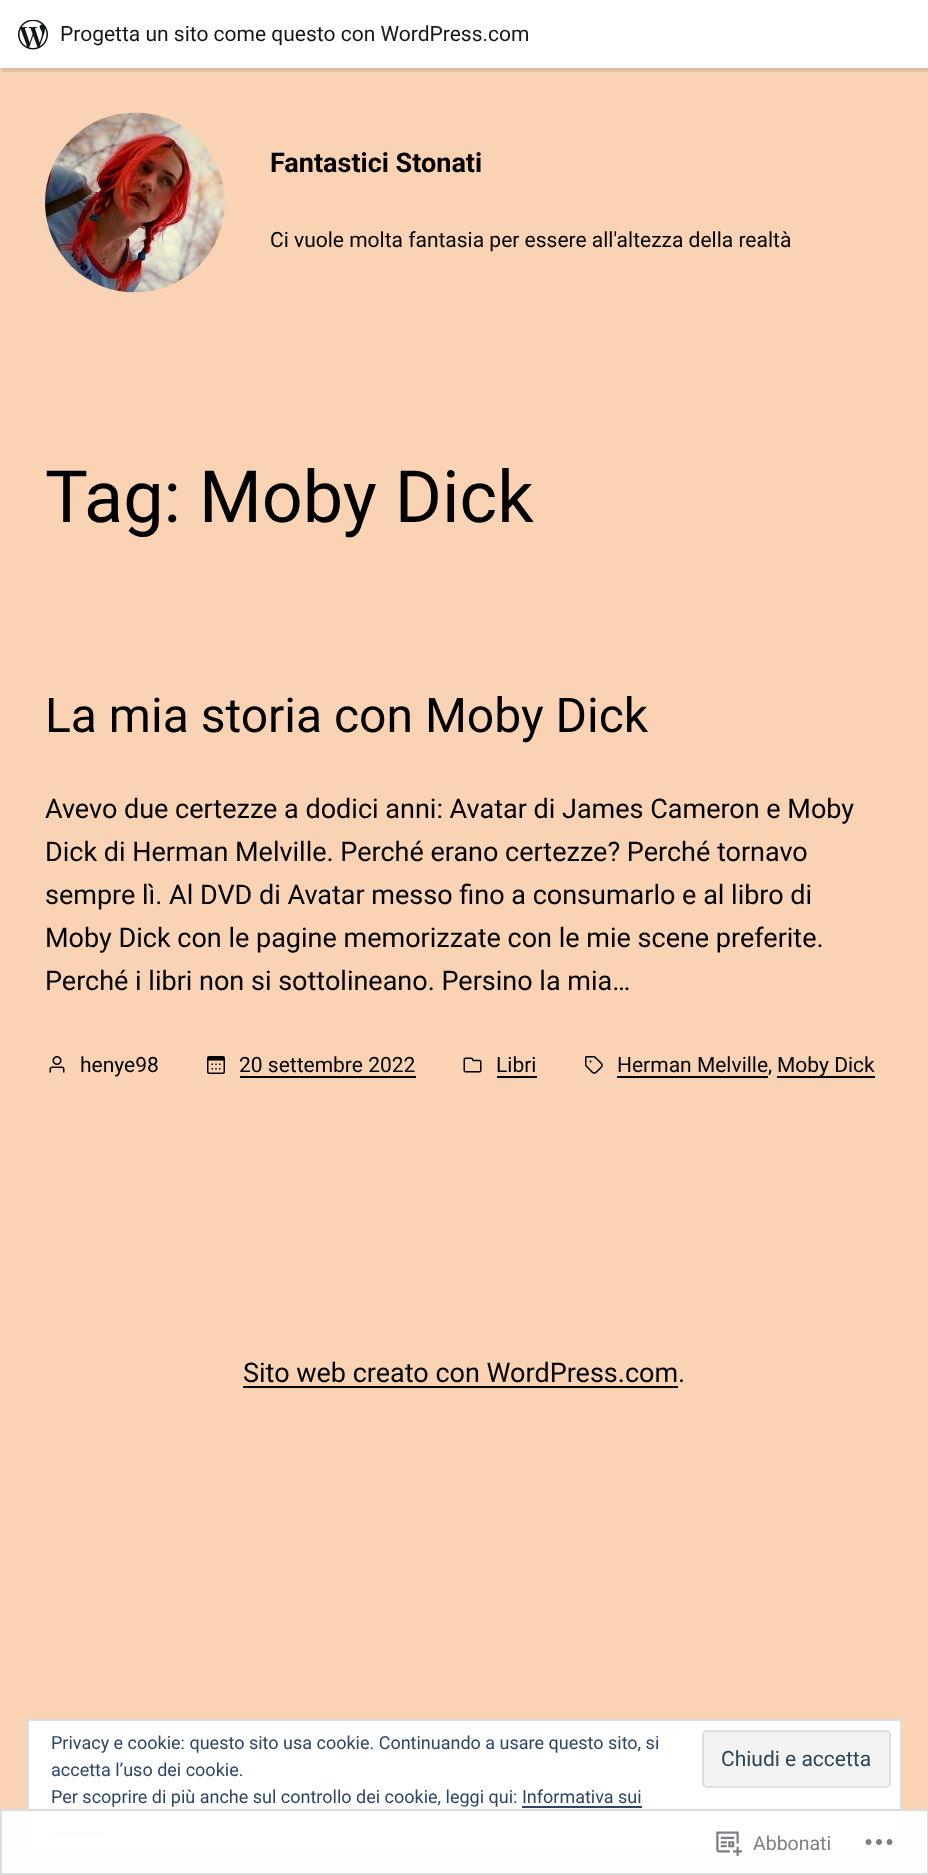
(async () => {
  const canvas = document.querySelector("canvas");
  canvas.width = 928;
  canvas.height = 1875;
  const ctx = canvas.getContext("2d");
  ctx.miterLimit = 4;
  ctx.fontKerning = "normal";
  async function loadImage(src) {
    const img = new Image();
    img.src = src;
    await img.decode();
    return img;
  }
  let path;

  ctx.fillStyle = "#f9d3b3";
  ctx.fillRect(0, 0, 928, 1875);
  ctx.fillStyle = "rgba(0, 0, 0, 0.05)";
  ctx.filter = "blur(1.5px)";
  ctx.beginPath();
  ctx.rect(0, 2, 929, 67);
  ctx.fill();
  ctx.filter = "none";
  ctx.fillStyle = "rgba(0, 0, 0, 0.08)";
  path = new Path2D("M2 68V72H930V5H928V68Z");
  ctx.fill(path);
  ctx.fillStyle = "#ffffff";
  ctx.fillRect(0, 0, 928, 68);
  ctx.drawImage(await loadImage("img/1.png"), 18, 20, 30, 30);
  ctx.drawImage(await loadImage("img/2.png"), 45, 112, 180, 181);
  ctx.drawImage(await loadImage("img/3.png"), 49, 1056, 16, 17);
  ctx.drawImage(await loadImage("img/4.png"), 207, 1056, 18, 18);
  ctx.fillStyle = "#000000";
  ctx.fillRect(240, 1076, 176, 2);
  ctx.drawImage(await loadImage("img/5.png"), 463, 1057, 19, 16);
  ctx.fillRect(497, 1076, 40, 2);
  ctx.drawImage(await loadImage("img/6.png"), 585, 1056, 18, 18);
  for (const [x, y, w, h, color] of [
    [617, 1076, 151, 2, "#000000"],
    [777, 1076, 98, 2, "#000000"],
    [243, 1386, 435, 2, "#000000"],
  ]) {
    ctx.fillStyle = color;
    ctx.fillRect(x, y, w, h);
  }
  ctx.fillStyle = "#ffffff";
  ctx.beginPath();
  ctx.rect(28, 1720, 873, 127);
  ctx.fill();
  ctx.strokeStyle = "#dedede";
  ctx.lineWidth = 2;
  ctx.stroke();
  ctx.fillStyle = "#f3f3f3";
  ctx.beginPath();
  ctx.roundRect(703, 1731, 187, 56, 4);
  ctx.fill();
  ctx.stroke();
  ctx.fillStyle = "#2e4467";
  ctx.fillRect(522, 1806, 120, 2);
  ctx.fillRect(51, 1833, 53, 2);
  ctx.fillStyle = "rgba(255, 255, 255, 0.98)";
  ctx.beginPath();
  ctx.rect(1, 1810, 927, 64);
  ctx.fill();
  ctx.strokeStyle = "#dddddf";
  ctx.stroke();
  ctx.drawImage(await loadImage("img/7.png"), 716, 1831, 27, 25);
  ctx.drawImage(await loadImage("img/8.png"), 865, 1839, 28, 6);
  ctx.font = "21px Roboto";
  ctx.fillStyle = "#171717";
  ctx.fillText("Progetta un sito come questo con WordPress.com", 60, 41);
  ctx.font = "bold 27px Roboto";
  ctx.fillStyle = "#000000";
  ctx.fillText("Fantastici Stonati", 270, 172);
  ctx.font = "21px Roboto";
  ctx.fillText("Ci vuole molta fantasia per essere all'altezza della realtà", 270, 247);
  ctx.font = "72px Roboto";
  ctx.fillText("Tag: Moby Dick", 45, 522);
  ctx.font = "48px Roboto";
  ctx.fillText("La mia storia con Moby Dick", 45, 732);
  ctx.font = "27px Roboto";
  for (const [text, x, y] of [
    ["Avevo due certezze a dodici anni: Avatar di James Cameron e Moby", 45, 818],
    ["Dick di Herman Melville. Perché erano certezze? Perché tornavo", 45, 861],
    ["sempre lì. Al DVD di Avatar messo fino a consumarlo e al libro di", 45, 904],
    ["Moby Dick con le pagine memorizzate con le mie scene preferite.", 45, 947],
    ["Perché i libri non si sottolineano. Persino la mia…", 45, 990],
  ]) {
    ctx.fillText(text, x, y);
  }
  ctx.font = "21px Roboto";
  for (const [text, x, y] of [
    ["henye98", 80, 1072],
    ["20 settembre 2022", 239, 1072],
    ["Libri", 496, 1072],
    ["Herman Melville,", 617, 1072],
    ["Moby Dick", 777, 1072],
  ]) {
    ctx.fillText(text, x, y);
  }
  ctx.font = "27px Roboto";
  ctx.fillText("Sito web creato con WordPress.com.", 243, 1382);
  ctx.font = "18px Roboto";
  ctx.fillStyle = "#2e4467";
  ctx.fillText("Privacy e cookie: questo sito usa cookie. Continuando a usare questo sito, si", 51, 1749);
  ctx.font = "21px Roboto";
  ctx.fillStyle = "#2e4453";
  ctx.fillText("Chiudi e accetta", 721, 1766);
  ctx.font = "18px Roboto";
  ctx.fillStyle = "#2e4467";
  ctx.fillText("accetta l’uso dei cookie.", 51, 1776);
  ctx.fillText("Per scoprire di più anche sul controllo dei cookie, leggi qui: Informativa sui", 51, 1803);
  ctx.font = "19.5px Roboto";
  ctx.fillStyle = "#7b7f84";
  ctx.fillText("Abbonati", 753, 1850);
})();
